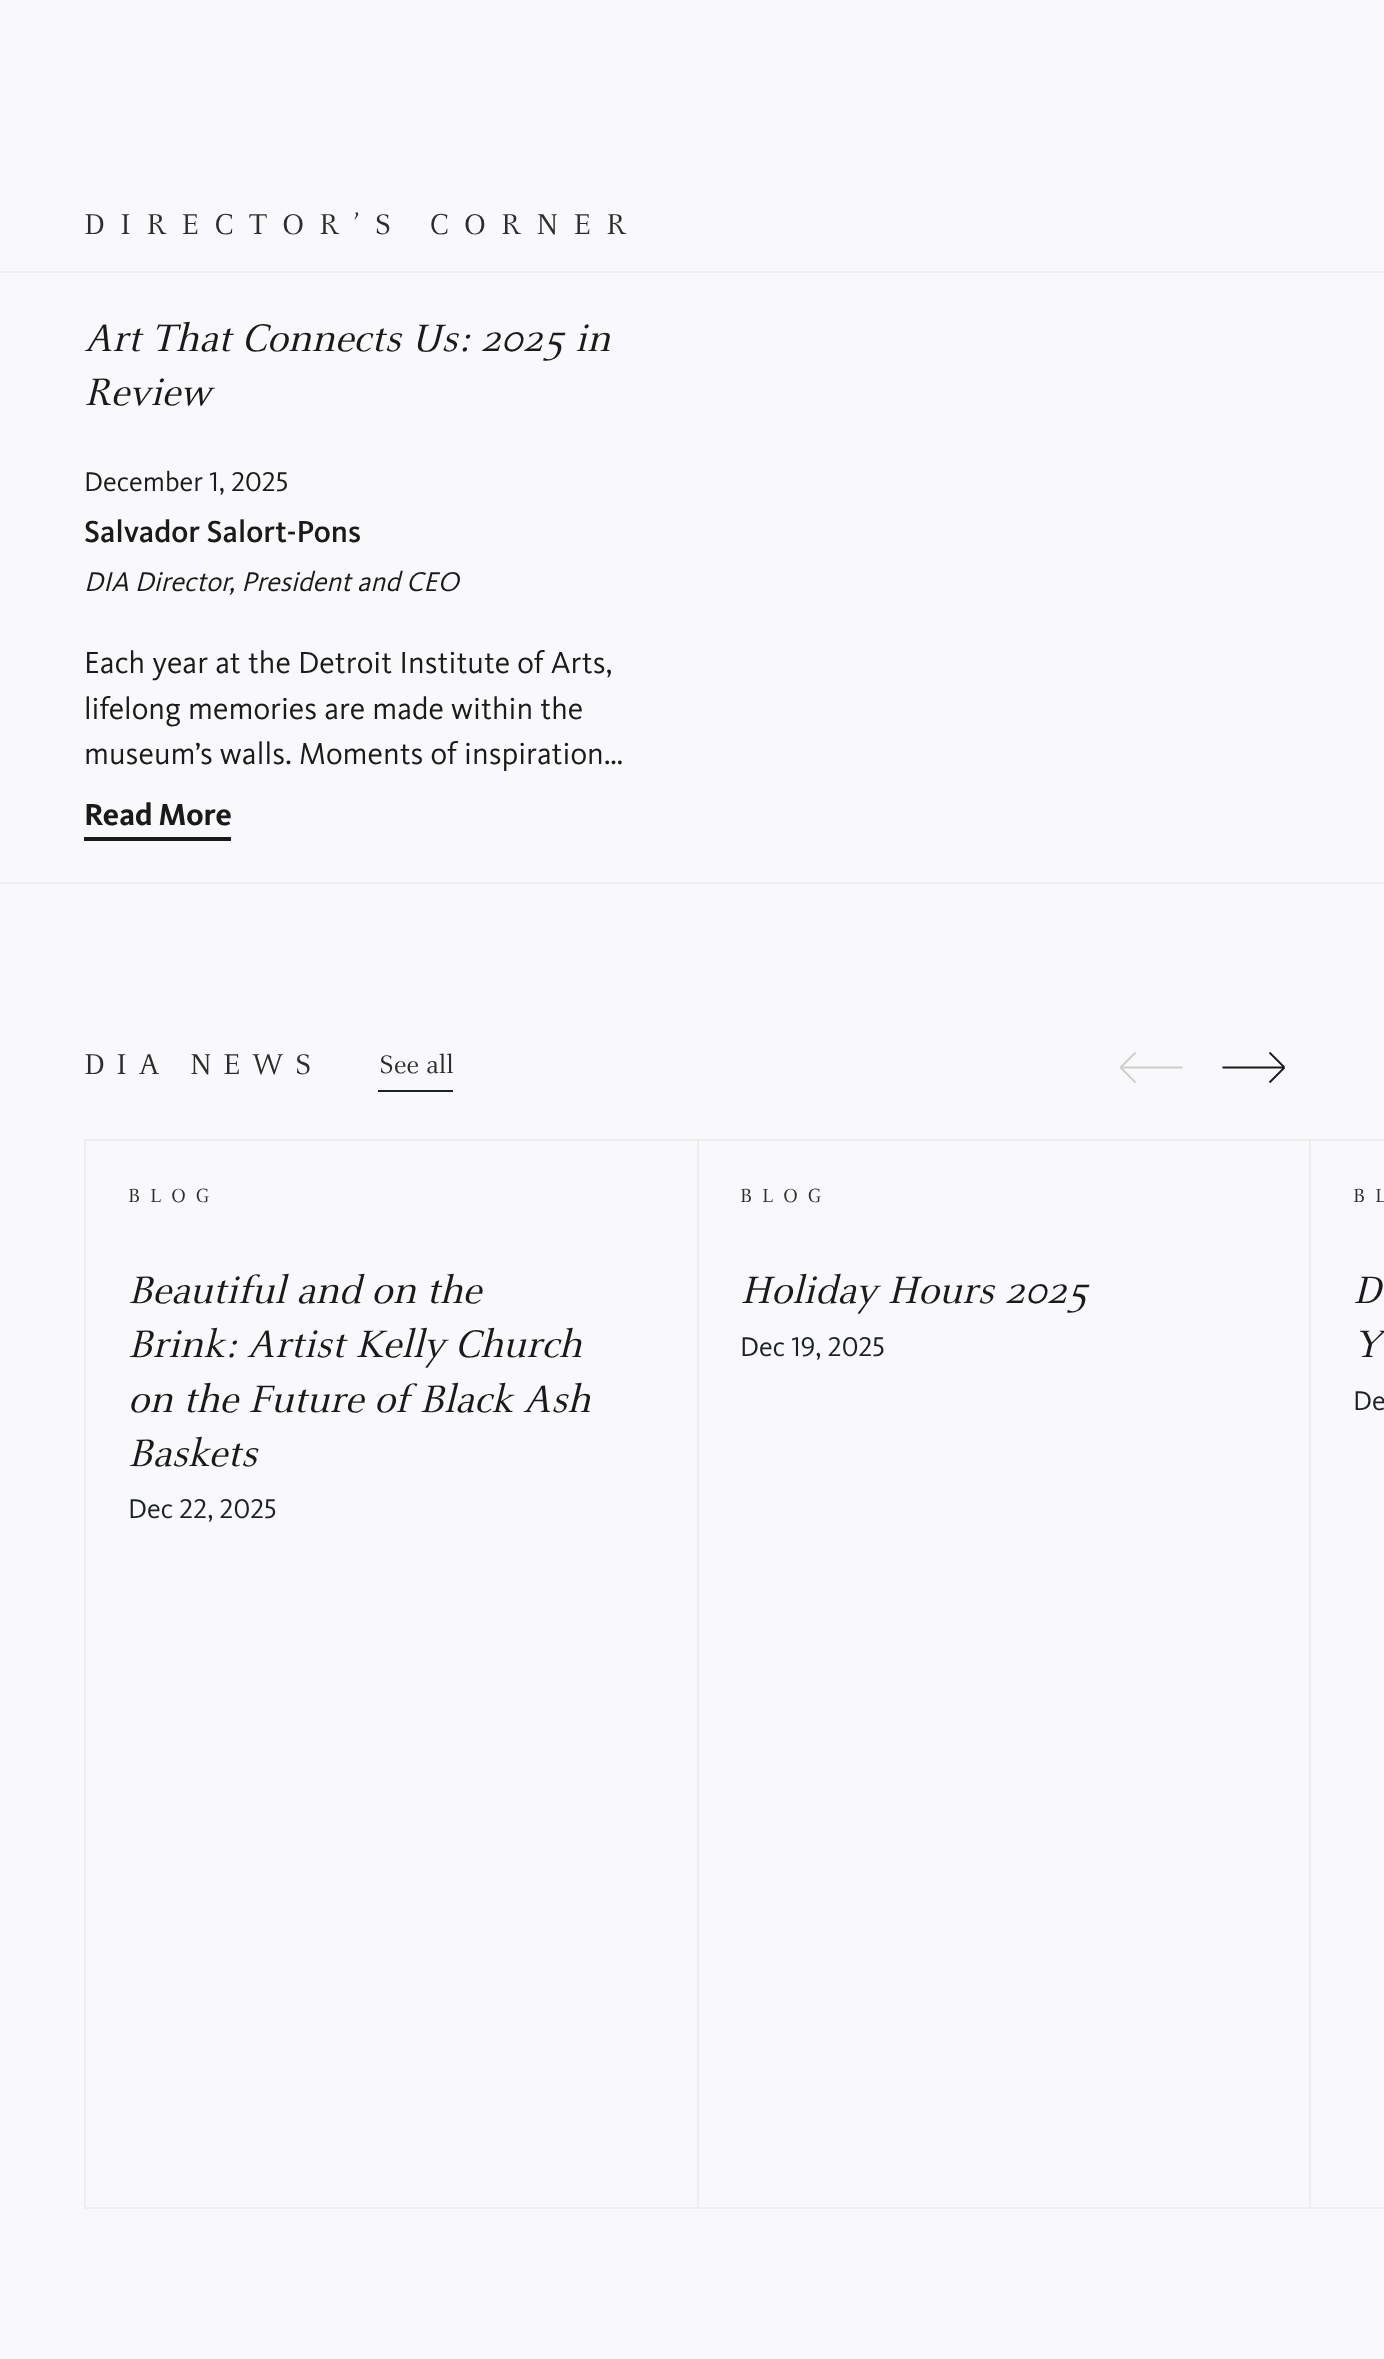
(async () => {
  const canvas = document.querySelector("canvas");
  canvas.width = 1384;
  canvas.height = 2359;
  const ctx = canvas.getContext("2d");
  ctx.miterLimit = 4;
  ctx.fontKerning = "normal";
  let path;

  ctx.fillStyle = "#f9f9fb";
  ctx.fillRect(0, 0, 1384, 2359);
  for (const [x, y, w, h, color] of [
    [0, 882, 1384, 2, "#eeeeee"],
    [0, 271, 1384, 2, "#eeeeee"],
    [84, 837, 147, 4, "#1a1a1a"],
    [378, 1090, 75, 2, "#1c2122"],
  ]) {
    ctx.fillStyle = color;
    ctx.fillRect(x, y, w, h);
  }
  path = new Path2D("M1135.5 1052.5L1120.5 1067.5M1120.5 1067.5L1135.5 1082.5M1120.5 1067.5H1182.5");
  ctx.strokeStyle = "#cdcdcd";
  ctx.lineWidth = 1.8;
  ctx.stroke(path);
  path = new Path2D("M1269.5 1052.5L1284.5 1067.5M1284.5 1067.5L1269.5 1082.5M1284.5 1067.5H1222.5");
  ctx.strokeStyle = "#1a1a1a";
  ctx.stroke(path);
  for (const [x, y, w, h, color] of [
    [84, 1139, 1300, 2, "#eeeeee"],
    [84, 2207, 1300, 2, "#eeeeee"],
    [84, 1139, 2, 1070, "#eeeeee"],
    [697, 1139, 2, 1070, "#eeeeee"],
    [1309, 1139, 2, 1070, "#eeeeee"],
  ]) {
    ctx.fillStyle = color;
    ctx.fillRect(x, y, w, h);
  }
  ctx.letterSpacing = "15.25px";
  ctx.font = "31.5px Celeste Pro";
  ctx.fillStyle = "#2d2d2d";
  ctx.fillText("DIRECTOR’S CORNER", 84, 234);
  ctx.letterSpacing = "0px";
  ctx.font = "italic 42px Celeste Pro";
  ctx.fillStyle = "#1a1a1a";
  ctx.fillText("Art That Connects Us: 2025 in", 84, 351);
  ctx.fillText("Review", 84, 405);
  ctx.font = "28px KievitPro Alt";
  ctx.fillText("December 1, 2025", 84, 491);
  ctx.font = "500 31.5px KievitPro";
  ctx.fillText("Salvador Salort-Pons", 84, 542);
  ctx.font = "italic 28px KievitPro";
  ctx.fillText("DIA Director, President and CEO", 84, 591);
  ctx.font = "31.5px KievitPro";
  for (const [text, x, y] of [
    ["Each year at the Detroit Institute of Arts,", 84, 673],
    ["lifelong memories are made within the", 84, 719],
    ["museum’s walls. Moments of inspiration…", 84, 764],
  ]) {
    ctx.fillText(text, x, y);
  }
  ctx.font = "bold 31.5px KievitPro";
  ctx.fillText("Read More", 84, 825);
  ctx.letterSpacing = "11.25px";
  ctx.font = "31.5px Celeste Pro";
  ctx.fillStyle = "#2d2d2d";
  ctx.fillText("DIA NEWS", 84, 1074);
  ctx.letterSpacing = "0px";
  ctx.font = "28px Celeste Pro";
  ctx.fillText("See all", 379, 1073);
  ctx.letterSpacing = "10px";
  ctx.font = "21px Celeste Pro";
  ctx.fillText("BLOG", 128, 1202);
  ctx.letterSpacing = "0px";
  ctx.font = "italic 42px Celeste Pro";
  ctx.fillStyle = "#1a1a1a";
  for (const [text, x, y] of [
    ["Beautiful and on the", 128, 1303],
    ["Brink: Artist Kelly Church", 128, 1357],
    ["on the Future of Black Ash", 128, 1412],
    ["Baskets", 128, 1466],
  ]) {
    ctx.fillText(text, x, y);
  }
  ctx.font = "28px KievitPro Alt";
  ctx.fillStyle = "#1c2122";
  ctx.fillText("Dec 22, 2025", 128, 1518);
  ctx.letterSpacing = "10px";
  ctx.font = "21px Celeste Pro";
  ctx.fillStyle = "#2d2d2d";
  ctx.fillText("BLOG", 740, 1202);
  ctx.letterSpacing = "0px";
  ctx.font = "italic 42px Celeste Pro";
  ctx.fillStyle = "#1a1a1a";
  ctx.fillText("Holiday Hours 2025", 740, 1303);
  ctx.font = "28px KievitPro Alt";
  ctx.fillStyle = "#1c2122";
  ctx.fillText("Dec 19, 2025", 740, 1356);
  ctx.letterSpacing = "10px";
  ctx.font = "21px Celeste Pro";
  ctx.fillStyle = "#2d2d2d";
  ctx.fillText("BL", 1353, 1202);
  ctx.letterSpacing = "0px";
  ctx.font = "italic 42px Celeste Pro";
  ctx.fillStyle = "#1a1a1a";
  ctx.fillText("D", 1353, 1303);
  ctx.fillText("Y", 1353, 1357);
  ctx.font = "28px KievitPro Alt";
  ctx.fillStyle = "#1c2122";
  ctx.fillText("De", 1353, 1410);
})();
